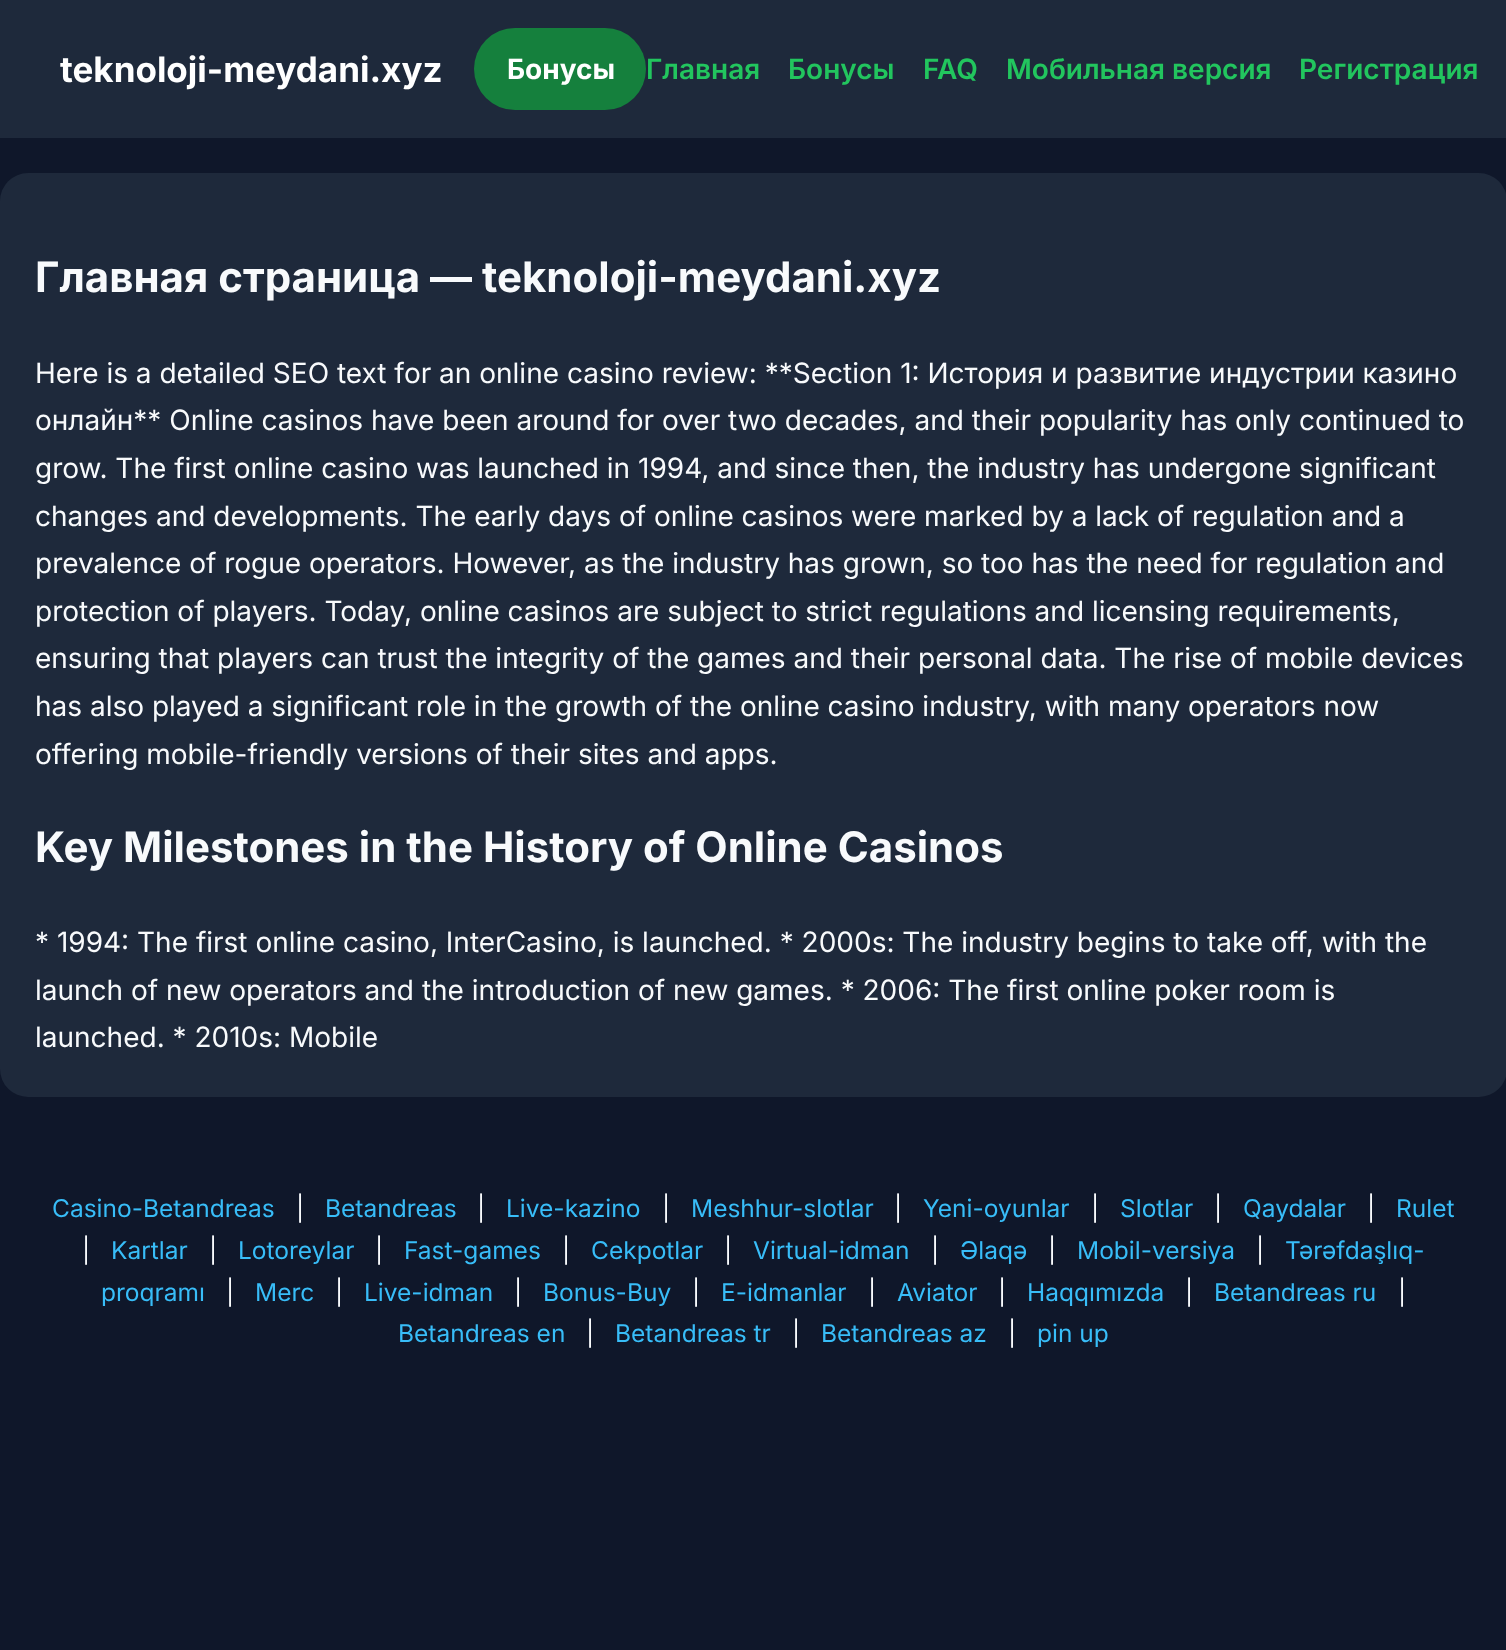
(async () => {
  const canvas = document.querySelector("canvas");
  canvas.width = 1506;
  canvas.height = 1650;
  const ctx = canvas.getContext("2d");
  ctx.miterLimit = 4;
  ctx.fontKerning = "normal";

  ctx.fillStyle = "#0f172a";
  ctx.fillRect(0, 0, 1506, 1650);
  ctx.fillStyle = "#1e293b";
  ctx.fillRect(0, 0, 1506, 138);
  ctx.fillStyle = "#15803d";
  ctx.beginPath();
  ctx.roundRect(474, 28, 172, 82, 41);
  ctx.fill();
  ctx.fillStyle = "#1e293b";
  ctx.beginPath();
  ctx.roundRect(0, 173, 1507, 924, 28);
  ctx.fill();
  ctx.font = "bold 35px Inter";
  ctx.fillStyle = "#ffffff";
  ctx.fillText("teknoloji-meydani.xyz", 60, 82);
  ctx.font = "bold 28px Inter";
  ctx.fillText("Бонусы", 507, 79);
  ctx.font = "600 28px Inter";
  ctx.fillStyle = "#22c55e";
  for (const [text, x, y] of [
    ["Главная", 646, 79],
    ["Бонусы", 788, 79],
    ["FAQ", 923, 79],
    ["Мобильная версия", 1006, 79],
    ["Регистрация", 1299, 79],
  ]) {
    ctx.fillText(text, x, y);
  }
  ctx.font = "bold 42px Inter";
  ctx.fillStyle = "#f8fafc";
  ctx.fillText("Главная страница — teknoloji-meydani.xyz", 35, 292);
  ctx.font = "28px Inter";
  for (const [text, x, y] of [
    ["Here is a detailed SEO text for an online casino review: **Section 1: История и развитие индустрии казино", 35, 383],
    ["онлайн** Online casinos have been around for over two decades, and their popularity has only continued to", 35, 430],
    ["grow. The first online casino was launched in 1994, and since then, the industry has undergone significant", 35, 478],
    ["changes and developments. The early days of online casinos were marked by a lack of regulation and a", 35, 526],
    ["prevalence of rogue operators. However, as the industry has grown, so too has the need for regulation and", 35, 573],
    ["protection of players. Today, online casinos are subject to strict regulations and licensing requirements,", 35, 621],
    ["ensuring that players can trust the integrity of the games and their personal data. The rise of mobile devices", 35, 668],
    ["has also played a significant role in the growth of the online casino industry, with many operators now", 35, 716],
    ["offering mobile-friendly versions of their sites and apps.", 35, 764],
  ]) {
    ctx.fillText(text, x, y);
  }
  ctx.font = "bold 42px Inter";
  ctx.fillText("Key Milestones in the History of Online Casinos", 35, 862);
  ctx.font = "28px Inter";
  for (const [text, x, y] of [
    ["* 1994: The first online casino, InterCasino, is launched. * 2000s: The industry begins to take off, with the", 35, 952],
    ["launch of new operators and the introduction of new games. * 2006: The first online poker room is", 35, 1000],
    ["launched. * 2010s: Mobile", 35, 1047],
  ]) {
    ctx.fillText(text, x, y);
  }
  ctx.font = "24.5px Inter";
  ctx.fillStyle = "#38bdf8";
  ctx.fillText("Casino-Betandreas", 52, 1217);
  ctx.fillStyle = "#f8fafc";
  ctx.fillText("|", 296, 1217);
  ctx.fillStyle = "#38bdf8";
  ctx.fillText("Betandreas", 325, 1217);
  ctx.fillStyle = "#f8fafc";
  ctx.fillText("|", 477, 1217);
  ctx.fillStyle = "#38bdf8";
  ctx.fillText("Live-kazino", 506, 1217);
  ctx.fillStyle = "#f8fafc";
  ctx.fillText("|", 662, 1217);
  ctx.fillStyle = "#38bdf8";
  ctx.fillText("Meshhur-slotlar", 691, 1217);
  ctx.fillStyle = "#f8fafc";
  ctx.fillText("|", 894, 1217);
  ctx.fillStyle = "#38bdf8";
  ctx.fillText("Yeni-oyunlar", 923, 1217);
  ctx.fillStyle = "#f8fafc";
  ctx.fillText("|", 1091, 1217);
  ctx.fillStyle = "#38bdf8";
  ctx.fillText("Slotlar", 1120, 1217);
  ctx.fillStyle = "#f8fafc";
  ctx.fillText("|", 1214, 1217);
  ctx.fillStyle = "#38bdf8";
  ctx.fillText("Qaydalar", 1243, 1217);
  ctx.fillStyle = "#f8fafc";
  ctx.fillText("|", 1367, 1217);
  ctx.fillStyle = "#38bdf8";
  ctx.fillText("Rulet", 1396, 1217);
  ctx.fillStyle = "#f8fafc";
  ctx.fillText("|", 82, 1259);
  ctx.fillStyle = "#38bdf8";
  ctx.fillText("Kartlar", 111, 1259);
  ctx.fillStyle = "#f8fafc";
  ctx.fillText("|", 209, 1259);
  ctx.fillStyle = "#38bdf8";
  ctx.fillText("Lotoreylar", 238, 1259);
  ctx.fillStyle = "#f8fafc";
  ctx.fillText("|", 375, 1259);
  ctx.fillStyle = "#38bdf8";
  ctx.fillText("Fast-games", 404, 1259);
  ctx.fillStyle = "#f8fafc";
  ctx.fillText("|", 562, 1259);
  ctx.fillStyle = "#38bdf8";
  ctx.fillText("Cekpotlar", 591, 1259);
  ctx.fillStyle = "#f8fafc";
  ctx.fillText("|", 724, 1259);
  ctx.fillStyle = "#38bdf8";
  ctx.fillText("Virtual-idman", 753, 1259);
  ctx.fillStyle = "#f8fafc";
  ctx.fillText("|", 931, 1259);
  ctx.fillStyle = "#38bdf8";
  ctx.fillText("Əlaqə", 960, 1259);
  ctx.fillStyle = "#f8fafc";
  ctx.fillText("|", 1048, 1259);
  ctx.fillStyle = "#38bdf8";
  ctx.fillText("Mobil-versiya", 1077, 1259);
  ctx.fillStyle = "#f8fafc";
  ctx.fillText("|", 1256, 1259);
  ctx.fillStyle = "#38bdf8";
  ctx.fillText("Tərəfdaşlıq-", 1285, 1259);
  ctx.fillText("proqramı", 101, 1301);
  ctx.fillStyle = "#f8fafc";
  ctx.fillText("|", 226, 1301);
  ctx.fillStyle = "#38bdf8";
  ctx.fillText("Merc", 255, 1301);
  ctx.fillStyle = "#f8fafc";
  ctx.fillText("|", 335, 1301);
  ctx.fillStyle = "#38bdf8";
  ctx.fillText("Live-idman", 364, 1301);
  ctx.fillStyle = "#f8fafc";
  ctx.fillText("|", 514, 1301);
  ctx.fillStyle = "#38bdf8";
  ctx.fillText("Bonus-Buy", 543, 1301);
  ctx.fillStyle = "#f8fafc";
  ctx.fillText("|", 692, 1301);
  ctx.fillStyle = "#38bdf8";
  ctx.fillText("E-idmanlar", 721, 1301);
  ctx.fillStyle = "#f8fafc";
  ctx.fillText("|", 868, 1301);
  ctx.fillStyle = "#38bdf8";
  ctx.fillText("Aviator", 897, 1301);
  ctx.fillStyle = "#f8fafc";
  ctx.fillText("|", 998, 1301);
  ctx.fillStyle = "#38bdf8";
  ctx.fillText("Haqqımızda", 1027, 1301);
  ctx.fillStyle = "#f8fafc";
  ctx.fillText("|", 1185, 1301);
  ctx.fillStyle = "#38bdf8";
  ctx.fillText("Betandreas ru", 1214, 1301);
  ctx.fillStyle = "#f8fafc";
  ctx.fillText("|", 1398, 1301);
  ctx.fillStyle = "#38bdf8";
  ctx.fillText("Betandreas en", 398, 1342);
  ctx.fillStyle = "#f8fafc";
  ctx.fillText("|", 586, 1342);
  ctx.fillStyle = "#38bdf8";
  ctx.fillText("Betandreas tr", 615, 1342);
  ctx.fillStyle = "#f8fafc";
  ctx.fillText("|", 792, 1342);
  ctx.fillStyle = "#38bdf8";
  ctx.fillText("Betandreas az", 821, 1342);
  ctx.fillStyle = "#f8fafc";
  ctx.fillText("|", 1008, 1342);
  ctx.fillStyle = "#38bdf8";
  ctx.fillText("pin up", 1037, 1342);
})();
